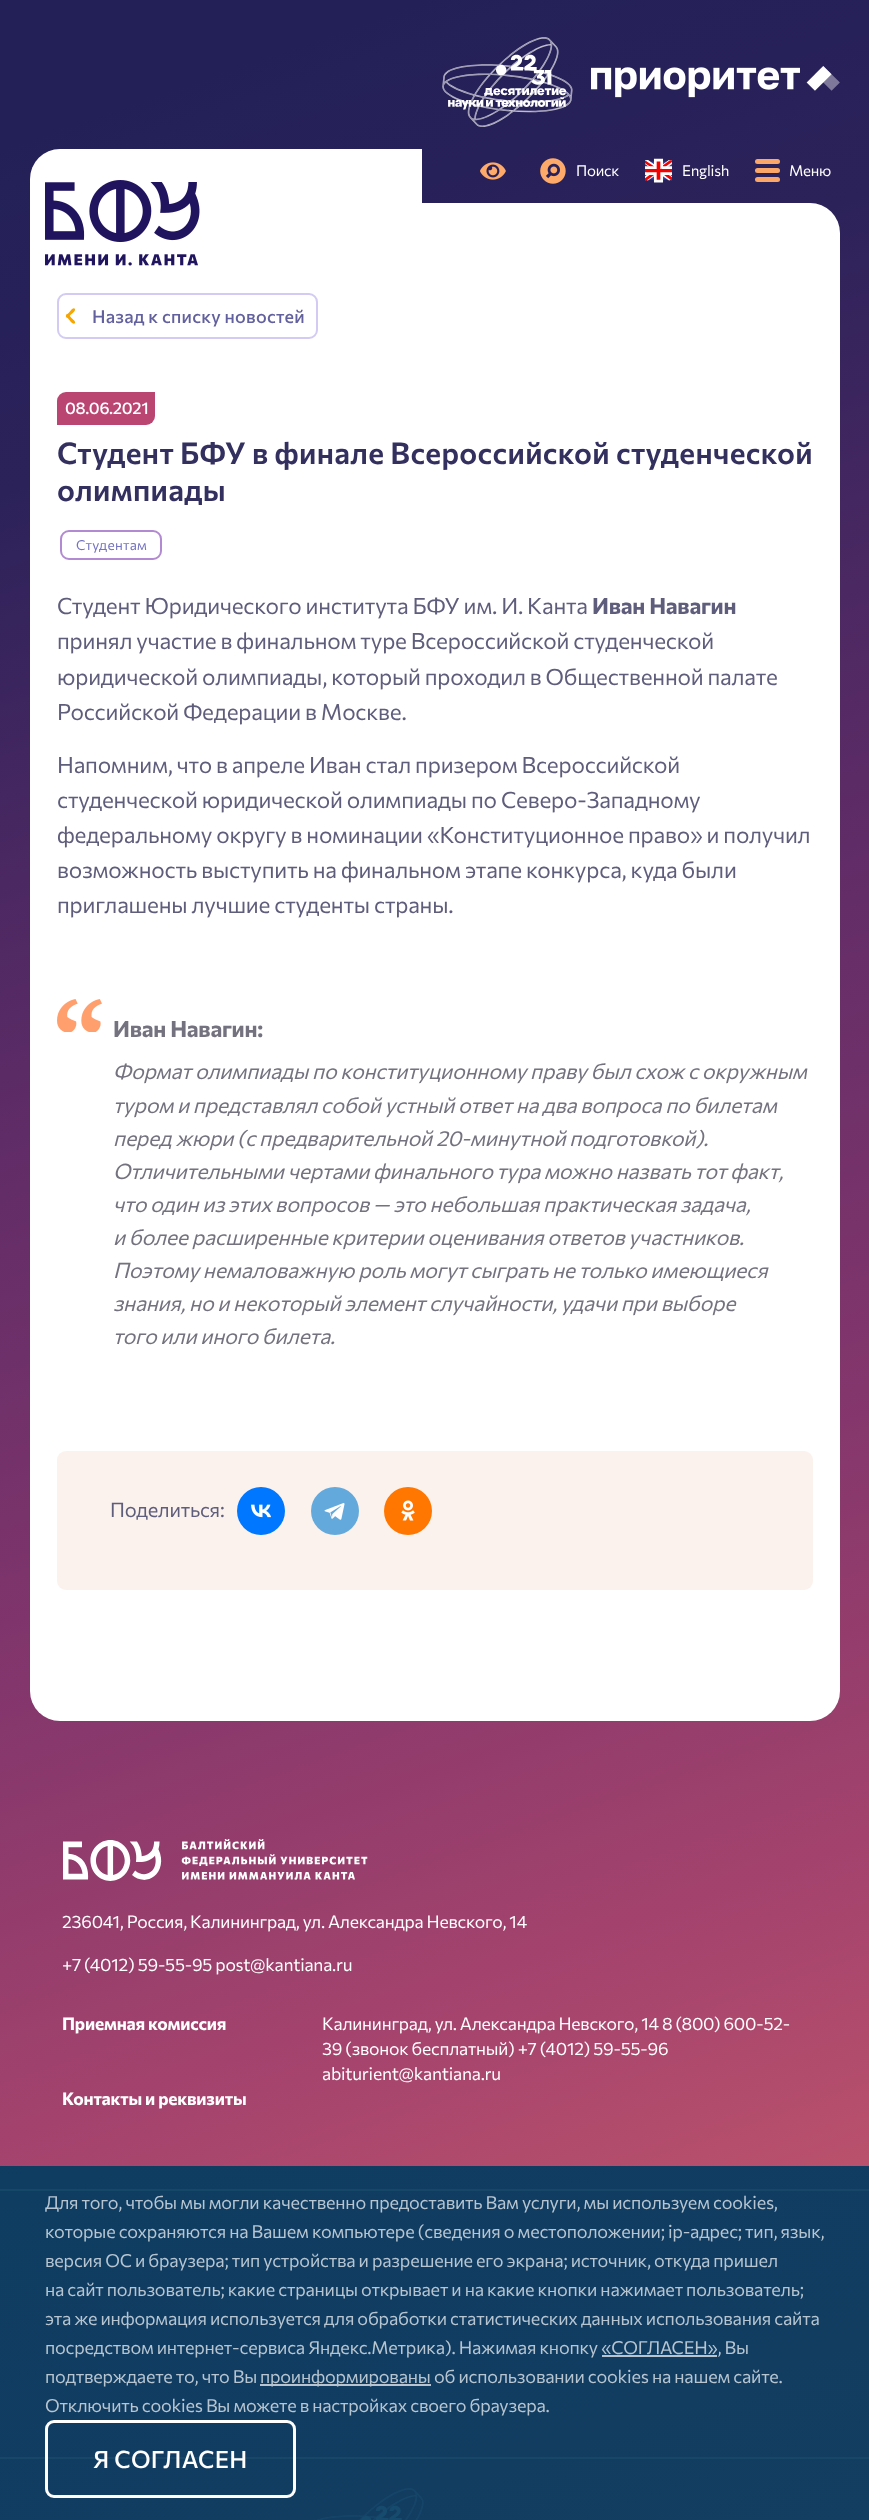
(async () => {
  const canvas = document.querySelector("canvas");
  canvas.width = 869;
  canvas.height = 2520;
  const ctx = canvas.getContext("2d");
  ctx.miterLimit = 4;
  ctx.fontKerning = "normal";
  async function loadImage(src) {
    const img = new Image();
    img.src = src;
    await img.decode();
    return img;
  }
  let gradient, path;

  ctx.fillStyle = "#ffffff";
  ctx.fillRect(0, 0, 869, 2520);
  gradient = ctx.createLinearGradient(-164, 57, 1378, 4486);
  gradient.addColorStop(0.03, "#232058");
  gradient.addColorStop(0.1, "#2c225a");
  gradient.addColorStop(0.23, "#602c67");
  gradient.addColorStop(0.34, "#83366c");
  gradient.addColorStop(0.44, "#a6446d");
  gradient.addColorStop(0.53, "#c5596c");
  gradient.addColorStop(0.61, "#de716a");
  gradient.addColorStop(0.67, "#ef8a68");
  gradient.addColorStop(0.77, "#f9a068");
  gradient.addColorStop(0.84, "#fbad63");
  gradient.addColorStop(1, "#fba045");
  ctx.fillStyle = gradient;
  ctx.fillRect(0, 0, 869, 2166);
  gradient = ctx.createLinearGradient(-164, 57, 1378, 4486);
  gradient.addColorStop(0.03, "#05395f");
  gradient.addColorStop(0.1, "#053960");
  gradient.addColorStop(0.23, "#0a3a61");
  gradient.addColorStop(0.34, "#0c3b61");
  gradient.addColorStop(0.44, "#0f3c61");
  gradient.addColorStop(0.53, "#123d61");
  gradient.addColorStop(0.61, "#143f61");
  gradient.addColorStop(0.67, "#154161");
  gradient.addColorStop(0.77, "#164361");
  gradient.addColorStop(0.84, "#164460");
  gradient.addColorStop(1, "#16435e");
  ctx.fillStyle = gradient;
  ctx.fillRect(0, 2166, 869, 354);
  ctx.drawImage(await loadImage("img/1.png"), 442, 37, 131, 90);
  ctx.drawImage(await loadImage("img/2.png"), 591, 66, 249, 32);
  ctx.fillStyle = "#ffffff";
  ctx.beginPath();
  ctx.roundRect(30, 149, 392, 54, [30, 0, 0, 0]);
  ctx.fill();
  ctx.drawImage(await loadImage("img/3.png"), 480, 162, 26, 18);
  ctx.drawImage(await loadImage("img/4.png"), 540, 158, 26, 26);
  ctx.drawImage(await loadImage("img/5.png"), 645, 158, 27, 25);
  ctx.fillStyle = "#fba769";
  ctx.beginPath();
  ctx.roundRect(755, 159, 25, 5, 2.5);
  ctx.fill();
  ctx.beginPath();
  ctx.roundRect(755, 168, 25, 5, 2.5);
  ctx.fill();
  ctx.beginPath();
  ctx.roundRect(755, 177, 25, 5, 2.5);
  ctx.fill();
  ctx.fillStyle = "#ffffff";
  ctx.beginPath();
  ctx.roundRect(30, 203, 810, 1518, [0, 30, 30, 30]);
  ctx.fill();
  ctx.drawImage(await loadImage("img/6.png"), 45, 180, 155, 86);
  ctx.beginPath();
  ctx.roundRect(58, 294, 259, 44, 8);
  ctx.strokeStyle = "#d4cbf2";
  ctx.lineWidth = 2;
  ctx.stroke();
  ctx.fillStyle = "#f7a600";
  path = new Path2D("M68.5 314.5L71.5 318C72.5 319 76 321.5 75 323C73 325.5 69.5 320 68.5 319L66 316C65.5 314.5 67.5 313.5 68.5 314.5Z");
  ctx.fill(path);
  path = new Path2D("M66.5 315L69.5 312C70.5 311 72.5 307.5 74.5 308.5C77 310 71.5 314 70.5 315L68 317.5C66.5 318.5 65 316.5 66.5 315Z");
  ctx.fill(path);
  ctx.fillStyle = "#ba4571";
  ctx.beginPath();
  ctx.roundRect(57, 392, 98, 33, [9, 0, 9, 0]);
  ctx.fill();
  ctx.beginPath();
  ctx.roundRect(61, 531, 100, 28, 8);
  ctx.strokeStyle = "#b28ad1";
  ctx.stroke();
  ctx.drawImage(await loadImage("img/7.png"), 57, 999, 45, 33);
  ctx.fillStyle = "#fbf2ed";
  ctx.beginPath();
  ctx.roundRect(57, 1451, 756, 139, 9);
  ctx.fill();
  ctx.fillStyle = "#0077ff";
  ctx.beginPath();
  ctx.arc(261, 1511, 24, 0, Math.PI * 2);
  ctx.fill();
  ctx.drawImage(await loadImage("img/8.png"), 251, 1504, 20, 14);
  ctx.fillStyle = "#64a9dc";
  ctx.beginPath();
  ctx.arc(335, 1511, 24, 0, Math.PI * 2);
  ctx.fill();
  ctx.drawImage(await loadImage("img/9.png"), 324, 1503, 21, 17);
  ctx.fillStyle = "#ff7700";
  ctx.beginPath();
  ctx.arc(408, 1511, 24, 0, Math.PI * 2);
  ctx.fill();
  ctx.drawImage(await loadImage("img/10.png"), 401, 1500, 14, 21);
  ctx.drawImage(await loadImage("img/11.png"), 63, 1839, 305, 42);
  ctx.fillStyle = "#164767";
  ctx.fillRect(0, 2189, 869, 2);
  ctx.fillRect(0, 2457, 869, 2);
  ctx.drawImage(await loadImage("img/12.png"), 317, 2488, 107, 32);
  ctx.fillStyle = "rgba(255, 255, 255, 0.7)";
  ctx.fillRect(260, 2384, 171, 2);
  ctx.beginPath();
  ctx.roundRect(46.5, 2421.5, 248, 75, 7.5);
  ctx.strokeStyle = "#ffffff";
  ctx.lineWidth = 3;
  ctx.stroke();
  ctx.letterSpacing = "-0.22px";
  ctx.font = "15px Commissioner";
  ctx.fillStyle = "#ffffff";
  for (const [text, x, y] of [
    ["Поиск", 576, 176],
    ["English", 682, 176],
    ["Меню", 789, 176],
  ]) {
    ctx.fillText(text, x, y);
  }
  ctx.letterSpacing = "0.2px";
  ctx.font = "500 18px Commissioner";
  ctx.fillStyle = "#62619e";
  ctx.fillText("Назад к списку новостей", 92, 323);
  ctx.letterSpacing = "-0.22px";
  ctx.font = "500 16.5px Commissioner";
  ctx.fillStyle = "#ffffff";
  ctx.fillText("08.06.2021", 65, 414);
  ctx.letterSpacing = "0.3px";
  ctx.font = "600 30px Commissioner";
  ctx.fillStyle = "#33305f";
  ctx.fillText("Студент БФУ в финале Всероссийской студенческой", 57, 464);
  ctx.fillText("олимпиады", 57, 501);
  ctx.letterSpacing = "0.25px";
  ctx.font = "13.75px Commissioner";
  ctx.fillStyle = "#7473c0";
  ctx.fillText("Студентам", 76, 550);
  ctx.letterSpacing = "-0.22px";
  ctx.font = "22.5px Commissioner";
  ctx.fillStyle = "#5f5d7c";
  ctx.fillText("Студент Юридического института БФУ им. И. Канта", 57, 614);
  ctx.font = "bold 22.5px Commissioner";
  ctx.fillText("Иван Навагин", 592, 614);
  ctx.font = "22.5px Commissioner";
  for (const [text, x, y] of [
    ["принял участие в финальном туре Всероссийской студенческой", 57, 649],
    ["юридической олимпиады, который проходил в Общественной палате", 57, 685],
    ["Российской Федерации в Москве.", 57, 720],
    ["Напомним, что в апреле Иван стал призером Всероссийской", 57, 773],
    ["студенческой юридической олимпиады по Северо-Западному", 57, 808],
    ["федеральному округу в номинации «Конституционное право» и получил", 57, 843],
    ["возможность выступить на финальном этапе конкурса, куда были", 57, 878],
    ["приглашены лучшие студенты страны.", 57, 913],
  ]) {
    ctx.fillText(text, x, y);
  }
  ctx.font = "bold 22.5px Commissioner";
  ctx.fillStyle = "#73727e";
  ctx.fillText("Иван Навагин:", 113, 1037);
  ctx.font = "italic 21.25px Commissioner";
  for (const [text, x, y] of [
    ["Формат олимпиады по конституционному праву был схож с окружным", 113, 1079],
    ["туром и представлял собой устный ответ на два вопроса по билетам", 113, 1113],
    ["перед жюри (с предварительной 20-минутной подготовкой).", 113, 1146],
    ["Отличительными чертами финального тура можно назвать тот факт,", 113, 1179],
    ["что один из этих вопросов — это небольшая практическая задача,", 113, 1212],
    ["и более расширенные критерии оценивания ответов участников.", 113, 1245],
    ["Поэтому немаловажную роль могут сыграть не только имеющиеся", 113, 1278],
    ["знания, но и некоторый элемент случайности, удачи при выборе", 113, 1311],
    ["того или иного билета.", 113, 1344],
  ]) {
    ctx.fillText(text, x, y);
  }
  ctx.font = "20px Commissioner";
  ctx.fillStyle = "#5f5d7c";
  ctx.fillText("Поделиться:", 110, 1517);
  ctx.font = "17.5px Commissioner";
  ctx.fillStyle = "#ffffff";
  ctx.fillText("236041, Россия, Калининград, ул. Александра Невского, 14", 62, 1928);
  ctx.fillText("+7 (4012) 59-55-95 post@kantiana.ru", 62, 1971);
  ctx.font = "bold 17.5px Commissioner";
  ctx.fillText("Приемная комиссия", 62, 2030);
  ctx.font = "17.5px Commissioner";
  for (const [text, x, y] of [
    ["Калининград, ул. Александра Невского, 14 8 (800) 600-52-", 322, 2030],
    ["39 (звонок бесплатный) +7 (4012) 59-55-96", 322, 2055],
    ["abiturient@kantiana.ru", 322, 2080],
  ]) {
    ctx.fillText(text, x, y);
  }
  ctx.font = "bold 17.5px Commissioner";
  ctx.fillText("Контакты и реквизиты", 62, 2105);
  ctx.font = "18px Commissioner";
  ctx.fillStyle = "#b7c5d0";
  for (const [text, x, y] of [
    ["Для того, чтобы мы могли качественно предоставить Вам услуги, мы используем cookies,", 45, 2209],
    ["которые сохраняются на Вашем компьютере (сведения о местоположении; ip-адрес; тип, язык,", 45, 2238],
    ["версия ОС и браузера; тип устройства и разрешение его экрана; источник, откуда пришел", 45, 2267],
    ["на сайт пользователь; какие страницы открывает и на какие кнопки нажимает пользователь;", 45, 2296],
    ["эта же информация используется для обработки статистических данных использования сайта", 45, 2325],
    ["посредством интернет-сервиса Яндекс.Метрика). Нажимая кнопку «СОГЛАСЕН», Вы", 45, 2354],
  ]) {
    ctx.fillText(text, x, y);
  }
  ctx.fillStyle = "#b8c5d0";
  ctx.fillRect(602, 2355, 115, 2);
  ctx.fillStyle = "#b7c5d0";
  for (const [text, x, y] of [
    ["подтверждаете то, что Вы", 45, 2383],
    ["проинформированы", 260, 2383],
    ["об использовании cookies на нашем сайте.", 434, 2383],
    ["Отключить cookies Вы можете в настройках своего браузера.", 45, 2412],
  ]) {
    ctx.fillText(text, x, y);
  }
  ctx.letterSpacing = "0.25px";
  ctx.font = "500 24px Commissioner";
  ctx.fillStyle = "#ffffff";
  ctx.fillText("Я СОГЛАСЕН", 93, 2468);
})();
